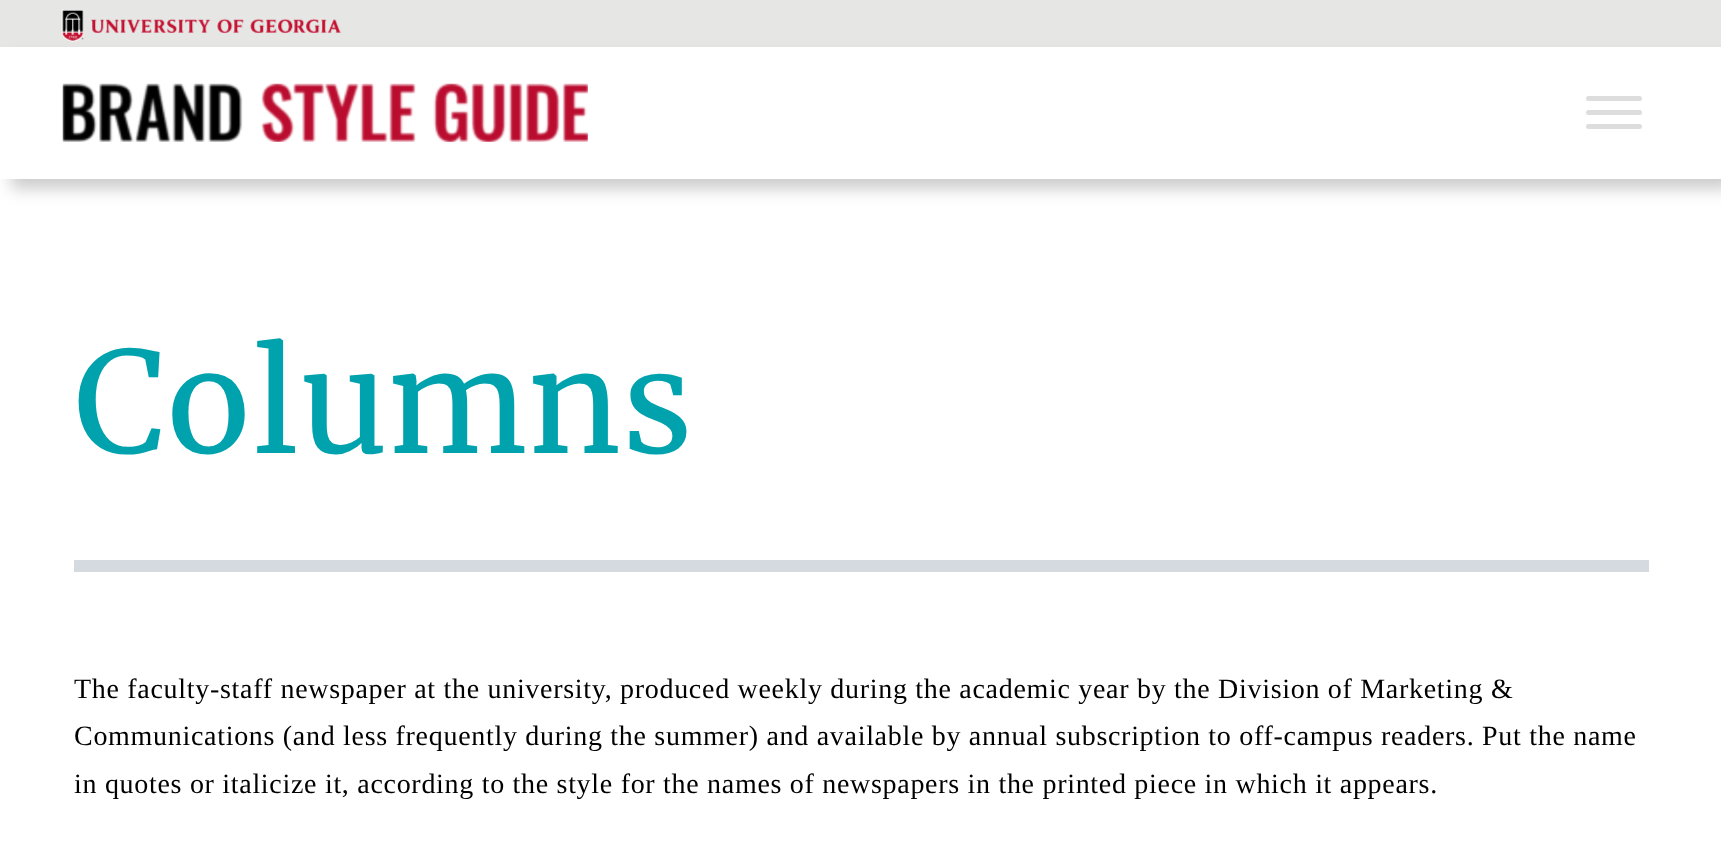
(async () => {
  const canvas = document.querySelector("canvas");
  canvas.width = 1721;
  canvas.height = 843;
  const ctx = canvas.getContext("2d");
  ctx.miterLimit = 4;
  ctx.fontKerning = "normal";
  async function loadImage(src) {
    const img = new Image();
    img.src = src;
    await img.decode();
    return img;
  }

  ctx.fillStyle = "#ffffff";
  ctx.fillRect(0, 0, 1721, 843);
  ctx.fillStyle = "#e6e7e5";
  ctx.fillRect(0, 0, 1721, 47);
  ctx.fillStyle = "rgba(0, 0, 0, 0.2)";
  ctx.filter = "blur(8px)";
  ctx.beginPath();
  ctx.rect(11, 58, 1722, 131);
  ctx.fill();
  ctx.filter = "none";
  ctx.drawImage(await loadImage("img/1.png"), 61, 9, 281, 33);
  ctx.fillStyle = "#ffffff";
  ctx.fillRect(0, 47, 1721, 132);
  ctx.drawImage(await loadImage("img/2.png"), 62, 83, 526, 59);
  ctx.fillStyle = "#dddddd";
  ctx.beginPath();
  ctx.roundRect(1586, 96, 56, 5, 2.5);
  ctx.fill();
  ctx.beginPath();
  ctx.roundRect(1586, 110, 56, 5, 2.5);
  ctx.fill();
  ctx.beginPath();
  ctx.roundRect(1586, 124, 56, 5, 2.5);
  ctx.fill();
  ctx.fillStyle = "#d4dae0";
  ctx.fillRect(74, 560, 1575, 12);
  ctx.letterSpacing = "0.7px";
  ctx.font = "140px Merriweather";
  ctx.fillStyle = "#00a3ad";
  ctx.fillText("Columns", 74, 453);
  ctx.font = "28px Liberation Serif";
  ctx.fillStyle = "#000000";
  for (const [text, x, y] of [
    ["The faculty-staff newspaper at the university, produced weekly during the academic year by the Division of Marketing &", 74, 698],
    ["Communications (and less frequently during the summer) and available by annual subscription to off-campus readers. Put the name", 74, 745],
    ["in quotes or italicize it, according to the style for the names of newspapers in the printed piece in which it appears.", 74, 793],
  ]) {
    ctx.fillText(text, x, y);
  }
})();
